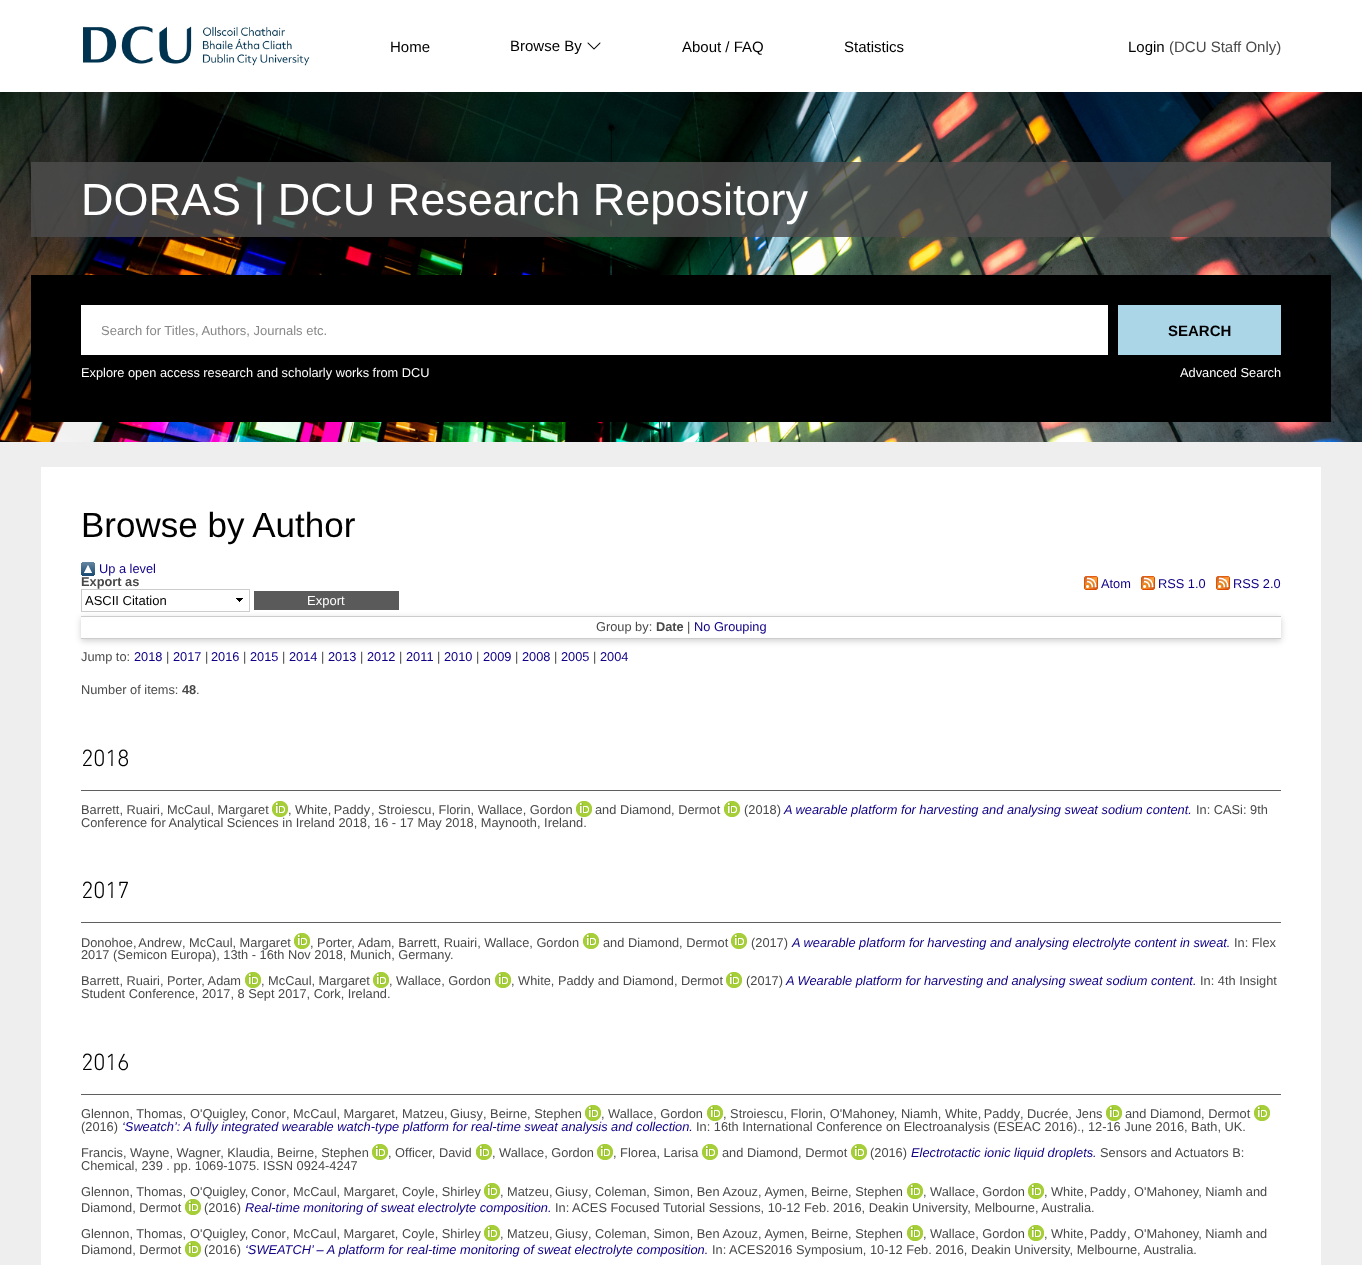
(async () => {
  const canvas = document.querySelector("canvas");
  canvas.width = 1362;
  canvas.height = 1265;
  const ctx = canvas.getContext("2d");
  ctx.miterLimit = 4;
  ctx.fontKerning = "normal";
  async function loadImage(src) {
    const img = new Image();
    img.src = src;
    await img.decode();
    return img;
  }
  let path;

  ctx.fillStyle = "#eeeeee";
  ctx.fillRect(0, 0, 1362, 1265);
  ctx.fillStyle = "#ffffff";
  ctx.fillRect(0, 0, 1362, 92);
  ctx.drawImage(await loadImage("img/1.png"), 83, 26, 227, 40);
  ctx.drawImage(await loadImage("img/2.png"), 587, 42, 14, 8);
  ctx.drawImage(await loadImage("img/3.png"), 0, 92, 1362, 350);
  for (const [x, y, w, h, color] of [
    [31, 162, 1300, 75, "rgba(77, 77, 77, 0.82)"],
    [31, 275, 1300, 147, "#000000"],
    [81, 305, 1027, 50, "#ffffff"],
    [1118, 305, 163, 50, "#abd6e7"],
    [41, 467, 1280, 798, "#ffffff"],
  ]) {
    ctx.fillStyle = color;
    ctx.fillRect(x, y, w, h);
  }
  ctx.drawImage(await loadImage("img/4.png"), 81, 562, 14, 14);
  ctx.drawImage(await loadImage("img/5.png"), 236, 598, 7, 4);
  ctx.save();
  path = new Path2D("M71 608H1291V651H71ZM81 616H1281V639H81Z");
  ctx.clip(path, "evenodd");
  ctx.fillStyle = "rgba(100, 100, 100, 0.3)";
  ctx.filter = "blur(3px)";
  ctx.beginPath();
  ctx.rect(81, 618, 1200, 23);
  ctx.fill();
  ctx.filter = "none";
  ctx.restore();
  ctx.strokeStyle = "#cccccc";
  ctx.strokeRect(81.5, 589.5, 168, 22);
  ctx.fillStyle = "#5a5a5a";
  ctx.fillRect(254, 591, 145, 19);
  ctx.drawImage(await loadImage("img/6.png"), 1084, 576, 14, 14);
  ctx.drawImage(await loadImage("img/6.png"), 1141, 576, 14, 14);
  ctx.drawImage(await loadImage("img/6.png"), 1216, 576, 14, 14);
  for (const [x, y, w, h, color] of [
    [81, 616, 1200, 1, "#cccccc"],
    [81, 638, 1200, 1, "#cccccc"],
    [81, 790, 1200, 1, "#606060"],
  ]) {
    ctx.fillStyle = color;
    ctx.fillRect(x, y, w, h);
  }
  ctx.drawImage(await loadImage("img/7.png"), 272, 801, 16, 16);
  ctx.drawImage(await loadImage("img/7.png"), 576, 801, 16, 16);
  ctx.drawImage(await loadImage("img/7.png"), 724, 801, 16, 16);
  ctx.fillRect(81, 922, 1200, 1);
  ctx.drawImage(await loadImage("img/7.png"), 294, 933, 16, 16);
  ctx.drawImage(await loadImage("img/7.png"), 583, 933, 16, 16);
  ctx.drawImage(await loadImage("img/7.png"), 731, 933, 16, 16);
  ctx.drawImage(await loadImage("img/7.png"), 245, 972, 16, 16);
  ctx.drawImage(await loadImage("img/7.png"), 373, 972, 16, 16);
  ctx.drawImage(await loadImage("img/7.png"), 495, 972, 16, 16);
  ctx.drawImage(await loadImage("img/7.png"), 726, 972, 16, 16);
  ctx.fillRect(81, 1094, 1200, 1);
  ctx.drawImage(await loadImage("img/7.png"), 585, 1105, 16, 16);
  ctx.drawImage(await loadImage("img/7.png"), 707, 1105, 16, 16);
  ctx.drawImage(await loadImage("img/7.png"), 1106, 1105, 16, 16);
  ctx.drawImage(await loadImage("img/7.png"), 1254, 1105, 16, 16);
  ctx.drawImage(await loadImage("img/7.png"), 372, 1144, 16, 16);
  ctx.drawImage(await loadImage("img/7.png"), 476, 1144, 16, 16);
  ctx.drawImage(await loadImage("img/7.png"), 597, 1144, 16, 16);
  ctx.drawImage(await loadImage("img/7.png"), 702, 1144, 16, 16);
  ctx.drawImage(await loadImage("img/7.png"), 851, 1144, 16, 16);
  ctx.drawImage(await loadImage("img/7.png"), 484, 1183, 16, 16);
  ctx.drawImage(await loadImage("img/7.png"), 907, 1183, 16, 16);
  ctx.drawImage(await loadImage("img/7.png"), 1028, 1183, 16, 16);
  ctx.drawImage(await loadImage("img/7.png"), 185, 1199, 16, 16);
  ctx.drawImage(await loadImage("img/7.png"), 484, 1225, 16, 16);
  ctx.drawImage(await loadImage("img/7.png"), 907, 1225, 16, 16);
  ctx.drawImage(await loadImage("img/7.png"), 1028, 1225, 16, 16);
  ctx.drawImage(await loadImage("img/7.png"), 185, 1241, 16, 16);
  ctx.font = "15px Liberation Sans";
  ctx.fillStyle = "#000000";
  for (const [text, x, y] of [
    ["Home", 390, 52],
    ["Browse By", 510, 51],
    ["About / FAQ", 682, 52],
    ["Statistics", 844, 52],
    ["Login", 1128, 52],
  ]) {
    ctx.fillText(text, x, y);
  }
  ctx.fillStyle = "#494949";
  ctx.fillText("(DCU Staff Only)", 1169, 52);
  ctx.font = "45px Liberation Sans";
  ctx.fillStyle = "#ffffff";
  ctx.fillText("DORAS | DCU Research Repository", 81, 215);
  ctx.font = "13px Liberation Sans";
  ctx.fillStyle = "#888888";
  ctx.fillText("Search for Titles, Authors, Journals etc.", 101, 335);
  ctx.font = "bold 15px Liberation Sans";
  ctx.fillStyle = "#000000";
  ctx.fillText("SEARCH", 1168, 336);
  ctx.font = "12.8px Liberation Sans";
  ctx.fillStyle = "#ffffff";
  ctx.fillText("Explore open access research and scholarly works from DCU", 81, 377);
  ctx.fillText("Advanced Search", 1180, 377);
  ctx.font = "35px Liberation Sans";
  ctx.fillStyle = "#000000";
  ctx.fillText("Browse by Author", 81, 537);
  ctx.font = "12.8px Liberation Sans";
  ctx.fillStyle = "#0f0085";
  ctx.fillText("Up a level", 99, 573);
  ctx.font = "bold 12.8px Liberation Sans";
  ctx.fillStyle = "#494949";
  ctx.fillText("Export as", 81, 586);
  ctx.font = "13px Liberation Sans";
  ctx.fillStyle = "#000000";
  ctx.fillText("ASCII Citation", 85, 605);
  ctx.fillStyle = "#ffffff";
  ctx.fillText("Export", 307, 605);
  ctx.font = "12.8px Liberation Sans";
  ctx.fillStyle = "#0f0085";
  for (const [text, x, y] of [
    ["Atom", 1101, 588],
    ["RSS 1.0", 1158, 588],
    ["RSS 2.0", 1233, 588],
  ]) {
    ctx.fillText(text, x, y);
  }
  ctx.fillStyle = "#494949";
  ctx.fillText("Group by:", 596, 631);
  ctx.font = "bold 12.8px Liberation Sans";
  ctx.fillText("Date", 656, 631);
  ctx.font = "12.8px Liberation Sans";
  ctx.fillText("|", 687, 631);
  ctx.fillStyle = "#0f0085";
  ctx.fillText("No Grouping", 694, 631);
  ctx.fillStyle = "#494949";
  ctx.fillText("Jump to:", 81, 661);
  ctx.fillStyle = "#0f0085";
  ctx.fillText("2018", 134, 661);
  ctx.fillStyle = "#494949";
  ctx.fillText("|", 166, 661);
  ctx.fillStyle = "#0f0085";
  ctx.fillText("2017", 173, 661);
  ctx.fillStyle = "#494949";
  ctx.fillText("|", 205, 661);
  ctx.fillStyle = "#0f0085";
  ctx.fillText("2016", 211, 661);
  ctx.fillStyle = "#494949";
  ctx.fillText("|", 243, 661);
  ctx.fillStyle = "#0f0085";
  ctx.fillText("2015", 250, 661);
  ctx.fillStyle = "#494949";
  ctx.fillText("|", 282, 661);
  ctx.fillStyle = "#0f0085";
  ctx.fillText("2014", 289, 661);
  ctx.fillStyle = "#494949";
  ctx.fillText("|", 321, 661);
  ctx.fillStyle = "#0f0085";
  ctx.fillText("2013", 328, 661);
  ctx.fillStyle = "#494949";
  ctx.fillText("|", 360, 661);
  ctx.fillStyle = "#0f0085";
  ctx.fillText("2012", 367, 661);
  ctx.fillStyle = "#494949";
  ctx.fillText("|", 399, 661);
  ctx.fillStyle = "#0f0085";
  ctx.fillText("2011", 406, 661);
  ctx.fillStyle = "#494949";
  ctx.fillText("|", 437, 661);
  ctx.fillStyle = "#0f0085";
  ctx.fillText("2010", 444, 661);
  ctx.fillStyle = "#494949";
  ctx.fillText("|", 476, 661);
  ctx.fillStyle = "#0f0085";
  ctx.fillText("2009", 483, 661);
  ctx.fillStyle = "#494949";
  ctx.fillText("|", 515, 661);
  ctx.fillStyle = "#0f0085";
  ctx.fillText("2008", 522, 661);
  ctx.fillStyle = "#494949";
  ctx.fillText("|", 554, 661);
  ctx.fillStyle = "#0f0085";
  ctx.fillText("2005", 561, 661);
  ctx.fillStyle = "#494949";
  ctx.fillText("|", 593, 661);
  ctx.fillStyle = "#0f0085";
  ctx.fillText("2004", 600, 661);
  ctx.fillStyle = "#494949";
  ctx.fillText("Number of items:", 81, 694);
  ctx.font = "bold 12.8px Liberation Sans";
  ctx.fillText("48", 182, 694);
  ctx.font = "12.8px Liberation Sans";
  ctx.fillText(".", 196, 694);
  ctx.font = "bold 23px 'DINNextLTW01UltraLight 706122'";
  ctx.fillStyle = "#000000";
  ctx.fillText("2018", 81, 766);
  ctx.font = "12.8px Liberation Sans";
  ctx.fillStyle = "#494949";
  ctx.fillText("Barrett, Ruairi, McCaul, Margaret", 81, 814);
  ctx.fillText(",", 288, 814);
  ctx.wordSpacing = "-1px";
  ctx.fillText("White, Paddy", 295, 814);
  ctx.wordSpacing = "0px";
  for (const [text, x, y] of [
    [", Stroiescu, Florin, Wallace, Gordon", 371, 814],
    ["and Diamond, Dermot", 595, 814],
    ["(2018)", 744, 814],
  ]) {
    ctx.fillText(text, x, y);
  }
  ctx.font = "italic 12.8px Liberation Sans";
  ctx.fillStyle = "#0f0085";
  ctx.fillText("A wearable platform for harvesting and analysing sweat sodium content.", 784, 814);
  ctx.font = "12.8px Liberation Sans";
  ctx.fillStyle = "#494949";
  ctx.fillText("In: CASi: 9th", 1196, 814);
  ctx.fillText("Conference for Analytical Sciences in Ireland 2018, 16 - 17 May 2018, Maynooth, Ireland.", 81, 827);
  ctx.font = "bold 23px 'DINNextLTW01UltraLight 706122'";
  ctx.fillStyle = "#000000";
  ctx.fillText("2017", 81, 898);
  ctx.wordSpacing = "-1px";
  ctx.font = "12.8px Liberation Sans";
  ctx.fillStyle = "#494949";
  ctx.fillText("Donohoe, Andrew", 81, 947);
  ctx.wordSpacing = "0px";
  for (const [text, x, y] of [
    [", McCaul, Margaret", 182, 947],
    [", Porter, Adam, Barrett, Ruairi, Wallace, Gordon", 310, 947],
    ["and Diamond, Dermot", 603, 947],
    ["(2017)", 751, 947],
  ]) {
    ctx.fillText(text, x, y);
  }
  ctx.font = "italic 12.8px Liberation Sans";
  ctx.fillStyle = "#0f0085";
  ctx.fillText("A wearable platform for harvesting and analysing electrolyte content in sweat.", 792, 947);
  ctx.font = "12.8px Liberation Sans";
  ctx.fillStyle = "#494949";
  for (const [text, x, y] of [
    ["In: Flex", 1234, 947],
    ["2017 (Semicon Europa), 13th - 16th Nov 2018, Munich, Germany.", 81, 959],
    ["Barrett, Ruairi, Porter, Adam", 81, 985],
    [", McCaul, Margaret", 261, 985],
    [", Wallace, Gordon", 389, 985],
    [", White, Paddy and Diamond, Dermot", 511, 985],
    ["(2017)", 746, 985],
  ]) {
    ctx.fillText(text, x, y);
  }
  ctx.font = "italic 12.8px Liberation Sans";
  ctx.fillStyle = "#0f0085";
  ctx.fillText("A Wearable platform for harvesting and analysing sweat sodium content.", 786, 985);
  ctx.font = "12.8px Liberation Sans";
  ctx.fillStyle = "#494949";
  ctx.fillText("In: 4th Insight", 1200, 985);
  ctx.fillText("Student Conference, 2017, 8 Sept 2017, Cork, Ireland.", 81, 998);
  ctx.font = "bold 23px 'DINNextLTW01UltraLight 706122'";
  ctx.fillStyle = "#000000";
  ctx.fillText("2016", 81, 1070);
  ctx.font = "12.8px Liberation Sans";
  ctx.fillStyle = "#494949";
  ctx.fillText("Glennon, Thomas,", 81, 1118);
  ctx.wordSpacing = "-1px";
  ctx.fillText("O'Quigley, Conor", 190, 1118);
  ctx.wordSpacing = "0px";
  ctx.fillText(", McCaul, Margaret,", 286, 1118);
  ctx.wordSpacing = "-1px";
  ctx.fillText("Matzeu, Giusy", 402, 1118);
  ctx.wordSpacing = "0px";
  for (const [text, x, y] of [
    [", Beirne, Stephen", 483, 1118],
    [", Wallace, Gordon", 601, 1118],
    [", Stroiescu, Florin, O'Mahoney, Niamh,", 723, 1118],
  ]) {
    ctx.fillText(text, x, y);
  }
  ctx.wordSpacing = "-1px";
  ctx.fillText("White, Paddy", 945, 1118);
  ctx.wordSpacing = "0px";
  for (const [text, x, y] of [
    [", Ducrée, Jens", 1020, 1118],
    ["and Diamond, Dermot", 1125, 1118],
    ["(2016)", 81, 1131],
  ]) {
    ctx.fillText(text, x, y);
  }
  ctx.font = "italic 12.8px Liberation Sans";
  ctx.fillStyle = "#0f0085";
  ctx.fillText("‘Sweatch’: A fully integrated wearable watch-type platform for real-time sweat analysis and collection.", 122, 1131);
  ctx.font = "12.8px Liberation Sans";
  ctx.fillStyle = "#494949";
  for (const [text, x, y] of [
    ["In: 16th International Conference on Electroanalysis (ESEAC 2016)., 12-16 June 2016, Bath, UK.", 696, 1131],
    ["Francis, Wayne, Wagner, Klaudia, Beirne, Stephen", 81, 1157],
    [", Officer, David", 388, 1157],
    [", Wallace, Gordon", 492, 1157],
    [", Florea, Larisa", 613, 1157],
    ["and Diamond, Dermot", 722, 1157],
    ["(2016)", 870, 1157],
  ]) {
    ctx.fillText(text, x, y);
  }
  ctx.font = "italic 12.8px Liberation Sans";
  ctx.fillStyle = "#0f0085";
  ctx.fillText("Electrotactic ionic liquid droplets.", 911, 1157);
  ctx.font = "12.8px Liberation Sans";
  ctx.fillStyle = "#494949";
  for (const [text, x, y] of [
    ["Sensors and Actuators B:", 1100, 1157],
    ["Chemical, 239 . pp. 1069-1075. ISSN 0924-4247", 81, 1170],
    ["Glennon, Thomas,", 81, 1196],
  ]) {
    ctx.fillText(text, x, y);
  }
  ctx.wordSpacing = "-1px";
  ctx.fillText("O'Quigley, Conor", 190, 1196);
  ctx.wordSpacing = "0px";
  ctx.fillText(", McCaul, Margaret, Coyle, Shirley", 286, 1196);
  ctx.fillText(",", 500, 1196);
  ctx.wordSpacing = "-1px";
  ctx.fillText("Matzeu, Giusy", 507, 1196);
  ctx.wordSpacing = "0px";
  for (const [text, x, y] of [
    [", Coleman, Simon, Ben Azouz, Aymen, Beirne, Stephen", 588, 1196],
    [", Wallace, Gordon", 923, 1196],
    [",", 1044, 1196],
  ]) {
    ctx.fillText(text, x, y);
  }
  ctx.wordSpacing = "-1px";
  ctx.fillText("White, Paddy", 1051, 1196);
  ctx.wordSpacing = "0px";
  for (const [text, x, y] of [
    [", O'Mahoney, Niamh and", 1127, 1196],
    ["Diamond, Dermot", 81, 1212],
    ["(2016)", 204, 1212],
  ]) {
    ctx.fillText(text, x, y);
  }
  ctx.font = "italic 12.8px Liberation Sans";
  ctx.fillStyle = "#0f0085";
  ctx.fillText("Real-time monitoring of sweat electrolyte composition.", 245, 1212);
  ctx.font = "12.8px Liberation Sans";
  ctx.fillStyle = "#494949";
  ctx.fillText("In: ACES Focused Tutorial Sessions, 10-12 Feb. 2016, Deakin University, Melbourne, Australia.", 555, 1212);
  ctx.fillText("Glennon, Thomas,", 81, 1238);
  ctx.wordSpacing = "-1px";
  ctx.fillText("O'Quigley, Conor", 190, 1238);
  ctx.wordSpacing = "0px";
  ctx.fillText(", McCaul, Margaret, Coyle, Shirley", 286, 1238);
  ctx.fillText(",", 500, 1238);
  ctx.wordSpacing = "-1px";
  ctx.fillText("Matzeu, Giusy", 507, 1238);
  ctx.wordSpacing = "0px";
  for (const [text, x, y] of [
    [", Coleman, Simon, Ben Azouz, Aymen, Beirne, Stephen", 588, 1238],
    [", Wallace, Gordon", 923, 1238],
    [",", 1044, 1238],
  ]) {
    ctx.fillText(text, x, y);
  }
  ctx.wordSpacing = "-1px";
  ctx.fillText("White, Paddy", 1051, 1238);
  ctx.wordSpacing = "0px";
  for (const [text, x, y] of [
    [", O'Mahoney, Niamh and", 1127, 1238],
    ["Diamond, Dermot", 81, 1254],
    ["(2016)", 204, 1254],
  ]) {
    ctx.fillText(text, x, y);
  }
  ctx.font = "italic 12.8px Liberation Sans";
  ctx.fillStyle = "#0f0085";
  ctx.fillText("‘SWEATCH’ – A platform for real-time monitoring of sweat electrolyte composition.", 245, 1254);
  ctx.font = "12.8px Liberation Sans";
  ctx.fillStyle = "#494949";
  ctx.fillText("In: ACES2016 Symposium, 10-12 Feb. 2016, Deakin University, Melbourne, Australia.", 712, 1254);
})();
